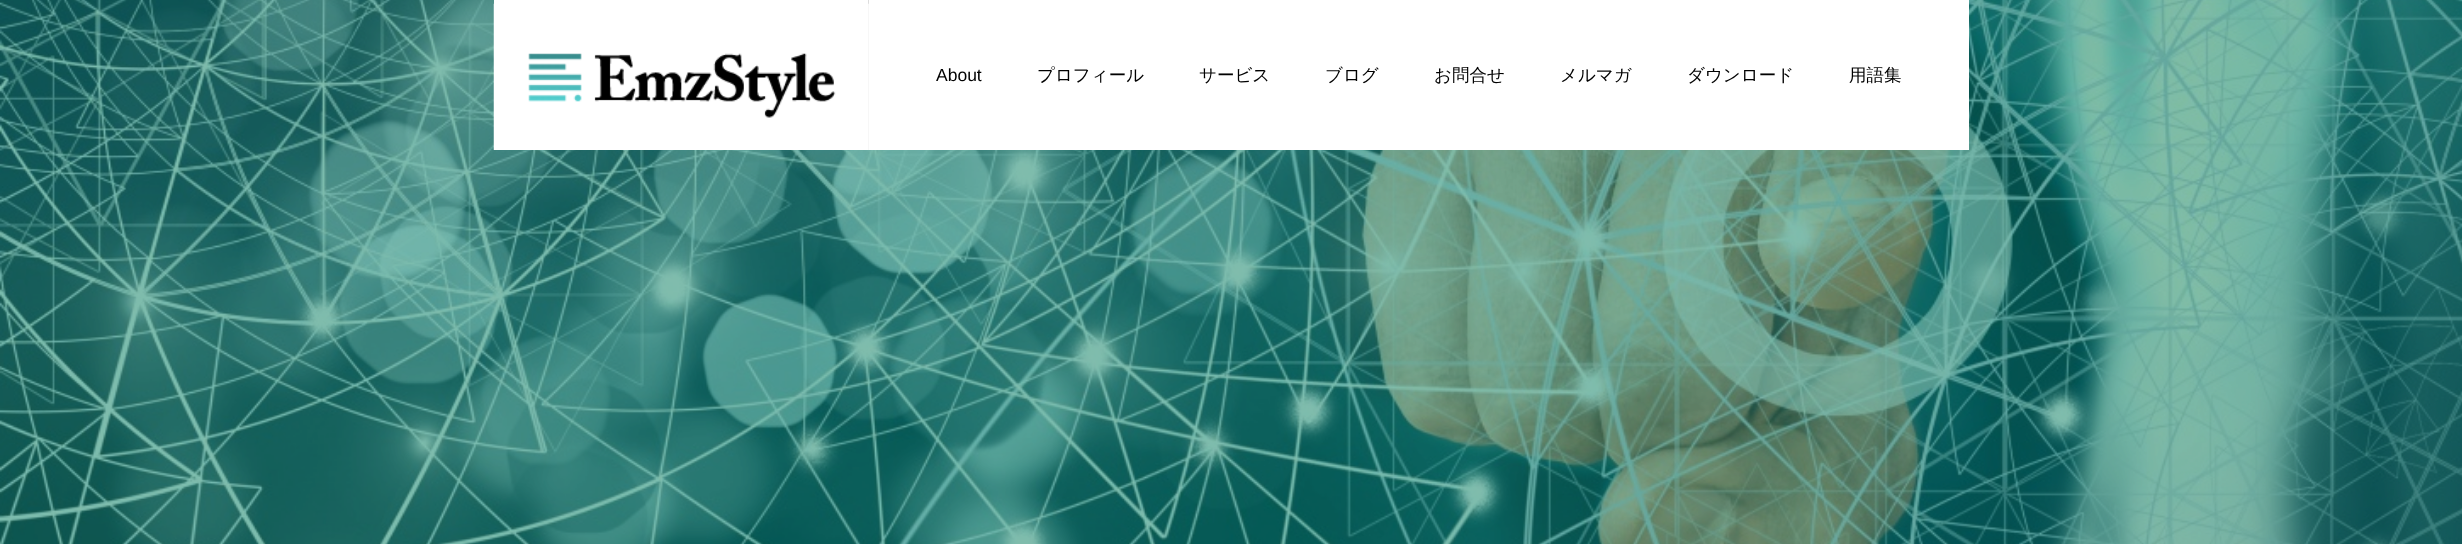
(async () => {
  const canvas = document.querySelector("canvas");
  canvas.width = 2462;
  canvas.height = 544;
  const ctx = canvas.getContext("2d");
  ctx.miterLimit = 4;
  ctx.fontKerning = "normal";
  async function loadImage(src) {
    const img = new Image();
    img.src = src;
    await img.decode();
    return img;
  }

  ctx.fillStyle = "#ffffff";
  ctx.fillRect(0, 0, 2462, 544);
  ctx.drawImage(await loadImage("img/1.png"), 0, 0, 2462, 544);
  ctx.fillRect(494, 0, 1475, 150);
  ctx.fillStyle = "#dddddd";
  ctx.fillRect(868, 0, 1, 150);
  ctx.drawImage(await loadImage("img/2.png"), 493, 3, 376, 147);
  ctx.font = "17.5px Liberation Sans";
  ctx.fillStyle = "#000000";
  ctx.fillText("About", 936, 81);
  ctx.font = "500 17.5px WenQuanYi Zen Hei";
  for (const [text, x, y] of [
    ["プロフィール", 1037, 81],
    ["サービス", 1199, 81],
    ["ブログ", 1325, 81],
    ["お問合せ", 1434, 81],
    ["メルマガ", 1560, 81],
    ["ダウンロード", 1687, 81],
    ["用語集", 1849, 81],
  ]) {
    ctx.fillText(text, x, y);
  }
})();
